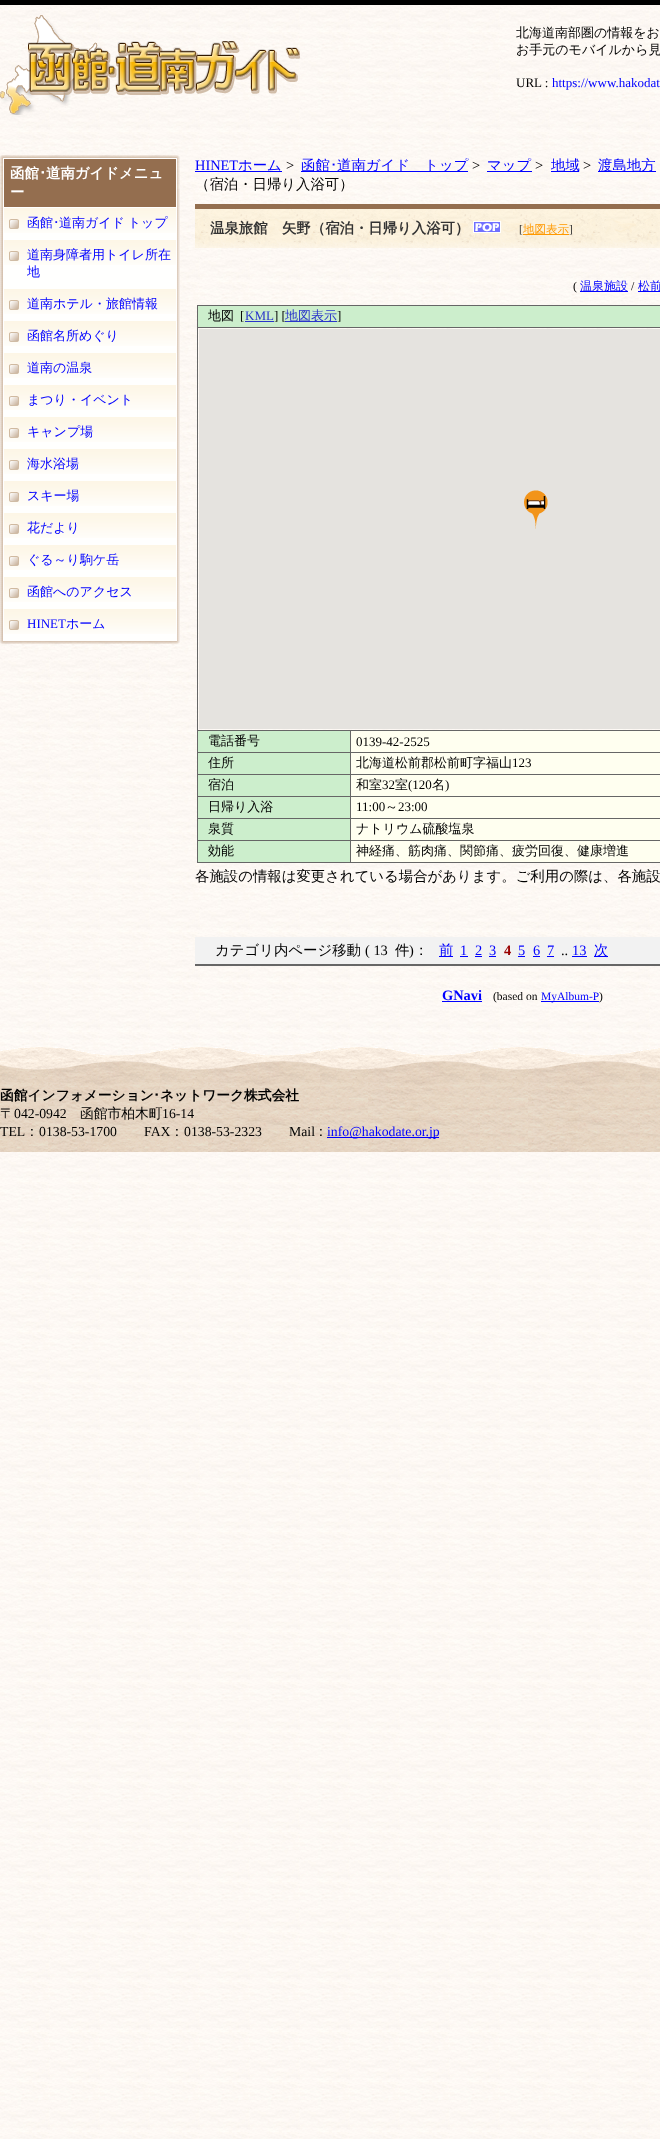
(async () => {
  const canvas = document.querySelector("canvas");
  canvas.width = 660;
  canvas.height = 2139;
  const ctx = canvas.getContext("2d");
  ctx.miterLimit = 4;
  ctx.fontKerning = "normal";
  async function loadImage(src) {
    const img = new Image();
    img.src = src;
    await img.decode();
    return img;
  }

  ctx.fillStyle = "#ffffff";
  ctx.fillRect(0, 0, 660, 2139);
  ctx.drawImage(await loadImage("img/1.png"), 0, 5, 660, 2134);
  ctx.fillStyle = "#000000";
  ctx.fillRect(0, 0, 660, 5);
  ctx.drawImage(await loadImage("img/2.png"), 0, 15, 300, 100);
  ctx.drawImage(await loadImage("img/3.png"), 0, 207, 180, 434);
  ctx.drawImage(await loadImage("img/4.png"), 0, 155, 180, 52);
  ctx.fillStyle = "#fffffe";
  ctx.fillRect(4, 233, 172, 6);
  ctx.drawImage(await loadImage("img/5.png"), 4, 208, 172, 25);
  ctx.strokeStyle = "#ffffff";
  ctx.strokeRect(3.5, 207.5, 173, 32);
  ctx.fillRect(4, 240, 172, 401);
  ctx.drawImage(await loadImage("img/5.png"), 4, 240, 172, 25);
  ctx.drawImage(await loadImage("img/5.png"), 4, 289, 172, 25);
  ctx.drawImage(await loadImage("img/5.png"), 4, 321, 172, 25);
  ctx.drawImage(await loadImage("img/5.png"), 4, 353, 172, 25);
  ctx.drawImage(await loadImage("img/5.png"), 4, 385, 172, 25);
  ctx.drawImage(await loadImage("img/5.png"), 4, 417, 172, 25);
  ctx.drawImage(await loadImage("img/5.png"), 4, 449, 172, 25);
  ctx.drawImage(await loadImage("img/5.png"), 4, 481, 172, 25);
  ctx.drawImage(await loadImage("img/5.png"), 4, 513, 172, 25);
  ctx.drawImage(await loadImage("img/5.png"), 4, 545, 172, 25);
  ctx.drawImage(await loadImage("img/5.png"), 4, 577, 172, 25);
  ctx.drawImage(await loadImage("img/5.png"), 4, 609, 172, 25);
  ctx.drawImage(await loadImage("img/6.png"), 0, 641, 180, 3);
  for (const [x, y, w, h, color] of [
    [195, 171, 87, 1, "#0000ff"],
    [301, 171, 167, 1, "#0000ff"],
    [487, 171, 45, 1, "#0000ff"],
    [551, 171, 28, 1, "#0000ff"],
    [598, 171, 58, 1, "#0000ff"],
  ]) {
    ctx.fillStyle = color;
    ctx.fillRect(x, y, w, h);
  }
  ctx.drawImage(await loadImage("img/7.png"), 195, 204, 465, 44);
  ctx.drawImage(await loadImage("img/8.png"), 473, 221, 28, 12);
  for (const [x, y, w, h, color] of [
    [523, 234, 46, 1, "#ff9900"],
    [580, 291, 48, 1, "#0000ff"],
    [638, 291, 22, 1, "#0000ff"],
    [197, 305, 463, 1, "#666666"],
    [197, 862, 463, 1, "#666666"],
    [197, 305, 1, 558, "#666666"],
    [198, 306, 462, 21, "#cceecc"],
    [245, 321, 29, 1, "#2a35ca"],
    [285, 321, 52, 1, "#2a35ca"],
    [197, 327, 463, 1, "#666666"],
    [199, 329, 461, 400, "#e5e3df"],
  ]) {
    ctx.fillStyle = color;
    ctx.fillRect(x, y, w, h);
  }
  ctx.drawImage(await loadImage("img/9.png"), 524, 490, 24, 39);
  for (const [x, y, w, h, color] of [
    [198, 731, 152, 21, "#cceecc"],
    [350, 730, 310, 1, "#666666"],
    [350, 752, 310, 1, "#666666"],
    [350, 774, 310, 1, "#666666"],
    [350, 796, 310, 1, "#666666"],
    [350, 818, 310, 1, "#666666"],
    [350, 840, 310, 1, "#666666"],
    [350, 840, 1, 23, "#666666"],
    [197, 840, 154, 1, "#666666"],
    [350, 818, 1, 23, "#666666"],
    [197, 818, 154, 1, "#666666"],
    [350, 796, 1, 23, "#666666"],
    [197, 796, 154, 1, "#666666"],
    [350, 774, 1, 23, "#666666"],
    [197, 774, 154, 1, "#666666"],
    [350, 752, 1, 23, "#666666"],
    [197, 752, 154, 1, "#666666"],
    [350, 730, 1, 23, "#666666"],
    [197, 730, 154, 1, "#666666"],
    [351, 731, 309, 21, "#fffff0"],
    [198, 753, 152, 21, "#cceecc"],
    [351, 753, 309, 21, "#fffff0"],
    [198, 775, 152, 21, "#cceecc"],
    [351, 775, 309, 21, "#fffff0"],
    [198, 797, 152, 21, "#cceecc"],
    [351, 797, 309, 21, "#fffff0"],
    [198, 819, 152, 21, "#cceecc"],
    [351, 819, 309, 21, "#fffff0"],
    [198, 841, 152, 21, "#cceecc"],
    [351, 841, 309, 21, "#fffff0"],
    [195, 937, 465, 27, "#f2f2f2"],
    [195, 964, 465, 2, "#666666"],
    [439, 956, 14, 1, "#0000ff"],
    [460, 956, 8, 1, "#0000ff"],
    [475, 956, 7, 1, "#0000ff"],
    [489, 956, 7, 1, "#0000ff"],
    [518, 956, 7, 1, "#0000ff"],
    [533, 956, 7, 1, "#0000ff"],
    [547, 956, 7, 1, "#0000ff"],
    [572, 956, 15, 1, "#0000ff"],
    [594, 956, 14, 1, "#0000ff"],
    [442, 1001, 40, 1, "#0000ff"],
    [541, 1001, 58, 1, "#0000ff"],
  ]) {
    ctx.fillStyle = color;
    ctx.fillRect(x, y, w, h);
  }
  ctx.drawImage(await loadImage("img/10.png"), 0, 1047, 660, 105);
  ctx.fillRect(327, 1137, 112, 1);
  ctx.font = "500 13px WenQuanYi Zen Hei";
  ctx.fillStyle = "#000000";
  ctx.fillText("北海道南部圏の情報をお", 516, 37);
  ctx.fillText("お手元のモバイルから見", 516, 54);
  ctx.font = "13px Liberation Serif";
  ctx.fillText("URL :", 516, 87);
  ctx.fillStyle = "#0000ff";
  ctx.fillText("https://www.hakodat", 552, 87);
  ctx.font = "bold 14.4px WenQuanYi Zen Hei";
  ctx.fillStyle = "#ffffff";
  ctx.fillText("函館", 10, 178);
  ctx.font = "bold 14.4px IPAPGothic";
  ctx.fillText("･", 39, 178);
  ctx.font = "bold 14.4px WenQuanYi Zen Hei";
  ctx.fillText("道南ガイドメニュ", 46, 178);
  ctx.fillText("ー", 10, 197);
  ctx.font = "500 13px WenQuanYi Zen Hei";
  ctx.fillStyle = "#0000ff";
  ctx.fillText("函館", 27, 227);
  ctx.font = "13px IPAPGothic";
  ctx.fillText("･", 53, 227);
  ctx.wordSpacing = "-1px";
  ctx.font = "500 13px WenQuanYi Zen Hei";
  ctx.fillText("道南ガイド トップ", 59, 227);
  ctx.wordSpacing = "0px";
  for (const [text, x, y] of [
    ["道南身障者用トイレ所在", 27, 259],
    ["地", 27, 276],
    ["道南ホテル・旅館情報", 27, 308],
    ["函館名所めぐり", 27, 340],
    ["道南の温泉", 27, 372],
    ["まつり・イベント", 27, 404],
    ["キャンプ場", 27, 436],
    ["海水浴場", 27, 468],
    ["スキー場", 27, 500],
    ["花だより", 27, 532],
    ["ぐる～り駒ケ岳", 27, 564],
    ["函館へのアクセス", 27, 596],
  ]) {
    ctx.fillText(text, x, y);
  }
  ctx.font = "13px Liberation Serif";
  ctx.fillText("HINET", 27, 628);
  ctx.font = "500 13px WenQuanYi Zen Hei";
  ctx.fillText("ホーム", 66, 628);
  ctx.font = "14.4px Liberation Serif";
  ctx.fillText("HINET", 195, 170);
  ctx.font = "500 14.4px WenQuanYi Zen Hei";
  ctx.fillText("ホーム", 238, 170);
  ctx.font = "14.4px Liberation Serif";
  ctx.fillStyle = "#000000";
  ctx.fillText(">", 286, 170);
  ctx.font = "500 14.4px WenQuanYi Zen Hei";
  ctx.fillStyle = "#0000ff";
  ctx.fillText("函館", 301, 170);
  ctx.font = "14.4px IPAPGothic";
  ctx.fillText("･", 330, 170);
  ctx.font = "500 14.4px WenQuanYi Zen Hei";
  ctx.fillText("道南ガイド　トップ", 337, 170);
  ctx.font = "14.4px Liberation Serif";
  ctx.fillStyle = "#000000";
  ctx.fillText(">", 472, 170);
  ctx.font = "500 14.4px WenQuanYi Zen Hei";
  ctx.fillStyle = "#0000ff";
  ctx.fillText("マップ", 487, 170);
  ctx.font = "14.4px Liberation Serif";
  ctx.fillStyle = "#000000";
  ctx.fillText(">", 535, 170);
  ctx.font = "500 14.4px WenQuanYi Zen Hei";
  ctx.fillStyle = "#0000ff";
  ctx.fillText("地域", 551, 170);
  ctx.font = "14.4px Liberation Serif";
  ctx.fillStyle = "#000000";
  ctx.fillText(">", 583, 170);
  ctx.font = "500 14.4px WenQuanYi Zen Hei";
  ctx.fillStyle = "#0000ff";
  ctx.fillText("渡島地方", 598, 170);
  ctx.fillStyle = "#000000";
  ctx.fillText("（宿泊・日帰り入浴可）", 195, 189);
  ctx.font = "bold 14.4px WenQuanYi Zen Hei";
  ctx.fillStyle = "#333333";
  ctx.fillText("温泉旅館　矢野（宿泊・日帰り入浴可）", 210, 233);
  ctx.font = "11.5px Liberation Serif";
  ctx.fillText("[", 519, 233);
  ctx.font = "500 11.5px WenQuanYi Zen Hei";
  ctx.fillStyle = "#ff9900";
  ctx.fillText("地図表示", 523, 233);
  ctx.font = "11.5px Liberation Serif";
  ctx.fillStyle = "#333333";
  ctx.fillText("]", 569, 233);
  ctx.font = "12px Liberation Serif";
  ctx.fillStyle = "#000000";
  ctx.fillText("(", 573, 290);
  ctx.font = "500 12px WenQuanYi Zen Hei";
  ctx.fillStyle = "#0000ff";
  ctx.fillText("温泉施設", 580, 290);
  ctx.font = "12px Liberation Serif";
  ctx.fillStyle = "#000000";
  ctx.fillText("/", 631, 290);
  ctx.font = "500 12px WenQuanYi Zen Hei";
  ctx.fillStyle = "#0000ff";
  ctx.fillText("松前", 638, 290);
  ctx.font = "500 13px WenQuanYi Zen Hei";
  ctx.fillStyle = "#000000";
  ctx.fillText("地図", 208, 320);
  ctx.font = "13px Liberation Serif";
  ctx.fillText("[", 240, 320);
  ctx.fillStyle = "#2a35ca";
  ctx.fillText("KML", 245, 320);
  ctx.fillStyle = "#000000";
  ctx.fillText("] [", 274, 320);
  ctx.font = "500 13px WenQuanYi Zen Hei";
  ctx.fillStyle = "#2a35ca";
  ctx.fillText("地図表示", 285, 320);
  ctx.font = "13px Liberation Serif";
  ctx.fillStyle = "#000000";
  ctx.fillText("]", 337, 320);
  ctx.font = "500 13px WenQuanYi Zen Hei";
  ctx.fillText("電話番号", 208, 745);
  ctx.font = "13px Liberation Serif";
  ctx.fillText("0139-42-2525", 356, 746);
  ctx.font = "500 13px WenQuanYi Zen Hei";
  ctx.fillText("住所", 208, 767);
  ctx.fillText("北海道松前郡松前町字福山", 356, 767);
  ctx.font = "13px Liberation Serif";
  ctx.fillText("123", 512, 767);
  ctx.font = "500 13px WenQuanYi Zen Hei";
  ctx.fillText("宿泊", 208, 789);
  ctx.fillText("和室", 356, 789);
  ctx.font = "13px Liberation Serif";
  ctx.fillText("32", 382, 789);
  ctx.font = "500 13px WenQuanYi Zen Hei";
  ctx.fillText("室", 395, 789);
  ctx.font = "13px Liberation Serif";
  ctx.fillText("(120", 408, 789);
  ctx.font = "500 13px WenQuanYi Zen Hei";
  ctx.fillText("名", 432, 789);
  ctx.font = "13px Liberation Serif";
  ctx.fillText(")", 445, 789);
  ctx.font = "500 13px WenQuanYi Zen Hei";
  ctx.fillText("日帰り入浴", 208, 811);
  ctx.font = "13px Liberation Serif";
  ctx.fillText("11:00", 356, 811);
  ctx.font = "500 13px WenQuanYi Zen Hei";
  ctx.fillText("～", 385, 811);
  ctx.font = "13px Liberation Serif";
  ctx.fillText("23:00", 398, 811);
  ctx.font = "500 13px WenQuanYi Zen Hei";
  for (const [text, x, y] of [
    ["泉質", 208, 833],
    ["ナトリウム硫酸塩泉", 356, 833],
    ["効能", 208, 855],
    ["神経痛、筋肉痛、関節痛、疲労回復、健康増進", 356, 855],
  ]) {
    ctx.fillText(text, x, y);
  }
  ctx.font = "500 14.4px WenQuanYi Zen Hei";
  ctx.fillText("各施設の情報は変更されている場合があります。ご利用の際は、各施設", 195, 881);
  ctx.fillText("カテゴリ内ページ移動", 215, 955);
  ctx.font = "14.4px Liberation Serif";
  ctx.fillText("( 13", 365, 955);
  ctx.font = "500 14.4px WenQuanYi Zen Hei";
  ctx.fillText("件", 395, 955);
  ctx.font = "14.4px Liberation Serif";
  ctx.fillText(")", 409, 955);
  ctx.font = "500 14.4px WenQuanYi Zen Hei";
  ctx.fillText("：", 414, 955);
  ctx.fillStyle = "#0000ff";
  ctx.fillText("前", 439, 955);
  ctx.font = "14.4px Liberation Serif";
  for (const [text, x, y] of [
    ["1", 460, 955],
    ["2", 475, 955],
    ["3", 489, 955],
  ]) {
    ctx.fillText(text, x, y);
  }
  ctx.font = "bold 14.4px Liberation Serif";
  ctx.fillStyle = "#990100";
  ctx.fillText("4", 504, 955);
  ctx.font = "14.4px Liberation Serif";
  ctx.fillStyle = "#0000ff";
  for (const [text, x, y] of [
    ["5", 518, 955],
    ["6", 533, 955],
    ["7", 547, 955],
  ]) {
    ctx.fillText(text, x, y);
  }
  ctx.fillStyle = "#000000";
  ctx.fillText("..", 561, 955);
  ctx.fillStyle = "#0000ff";
  ctx.fillText("13", 572, 955);
  ctx.font = "500 14.4px WenQuanYi Zen Hei";
  ctx.fillText("次", 594, 955);
  ctx.font = "bold 14.4px Liberation Serif";
  ctx.fillText("GNavi", 442, 1000);
  ctx.font = "11.5px Liberation Serif";
  ctx.fillStyle = "#000000";
  ctx.fillText("(based on", 493, 1000);
  ctx.fillStyle = "#0000ff";
  ctx.fillText("MyAlbum-P", 541, 1000);
  ctx.fillStyle = "#000000";
  ctx.fillText(")", 599, 1000);
  ctx.font = "bold 13.75px WenQuanYi Zen Hei";
  ctx.fillText("函館インフォメーション", 0, 1100);
  ctx.font = "bold 13.75px IPAPGothic";
  ctx.fillText("･", 153, 1100);
  ctx.font = "bold 13.75px WenQuanYi Zen Hei";
  ctx.fillText("ネットワーク株式会社", 160, 1100);
  ctx.font = "500 13.75px WenQuanYi Zen Hei";
  ctx.fillText("〒", 0, 1118);
  ctx.font = "13.75px Liberation Serif";
  ctx.fillText("042-0942", 14, 1118);
  ctx.font = "500 13.75px WenQuanYi Zen Hei";
  ctx.fillText("函館市柏木町", 80, 1118);
  ctx.font = "13.75px Liberation Serif";
  ctx.fillText("16-14", 162, 1118);
  ctx.fillText("TEL", 0, 1136);
  ctx.font = "500 13.75px WenQuanYi Zen Hei";
  ctx.fillText("：", 25, 1136);
  ctx.font = "13.75px Liberation Serif";
  ctx.fillText("0138-53-1700", 39, 1136);
  ctx.fillText("FAX", 144, 1136);
  ctx.font = "500 13.75px WenQuanYi Zen Hei";
  ctx.fillText("：", 170, 1136);
  ctx.font = "13.75px Liberation Serif";
  ctx.fillText("0138-53-2323", 184, 1136);
  ctx.fillText("Mail", 289, 1136);
  ctx.font = "500 13.75px WenQuanYi Zen Hei";
  ctx.fillText("：", 314, 1136);
  ctx.font = "13.75px Liberation Serif";
  ctx.fillStyle = "#0000ff";
  ctx.fillText("info@hakodate.or.jp", 327, 1136);
})();
